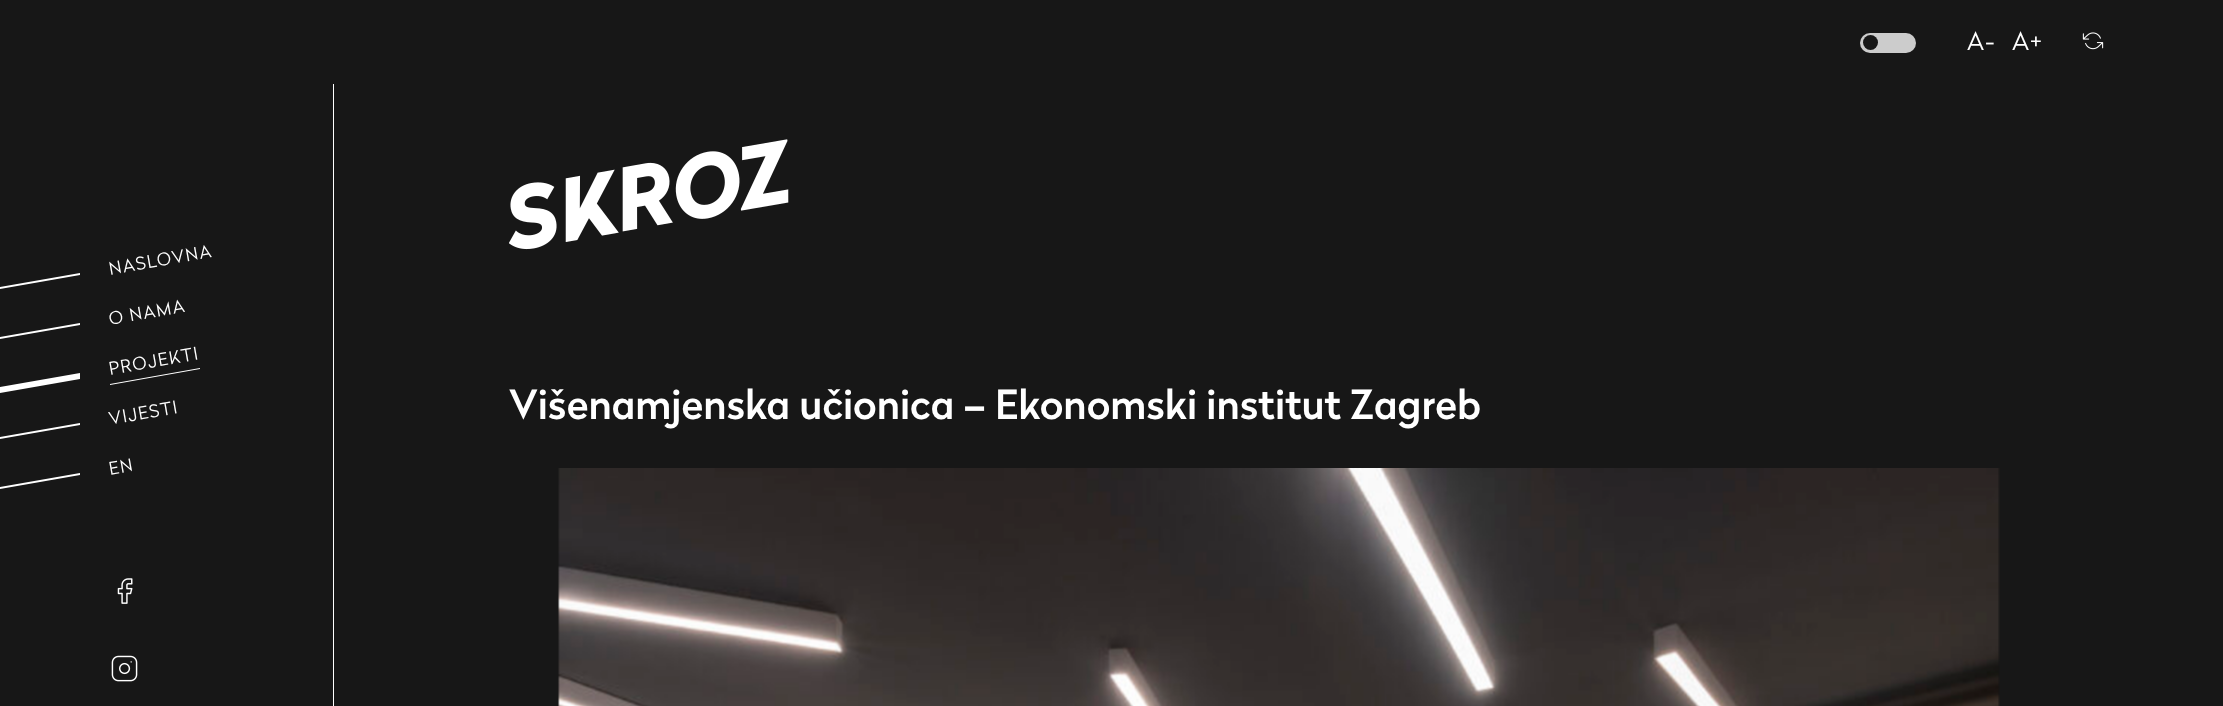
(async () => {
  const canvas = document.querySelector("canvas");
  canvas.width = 2223;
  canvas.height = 706;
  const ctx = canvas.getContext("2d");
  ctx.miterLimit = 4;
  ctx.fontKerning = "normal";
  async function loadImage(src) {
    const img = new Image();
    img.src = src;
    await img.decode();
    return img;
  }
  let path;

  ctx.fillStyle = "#171717";
  ctx.fillRect(0, 0, 2223, 706);
  ctx.fillStyle = "#cccccc";
  ctx.beginPath();
  ctx.roundRect(1860, 33, 56, 20, 10);
  ctx.fill();
  ctx.fillStyle = "#171717";
  ctx.beginPath();
  ctx.arc(1870.5, 42.5, 7.5, 0, Math.PI * 2);
  ctx.fill();
  ctx.drawImage(await loadImage("img/1.png"), 2082, 32, 22, 18);
  ctx.fillStyle = "#ffffff";
  ctx.fillRect(333, 84, 1, 622);
  path = new Path2D("M0 287L80 273V275L0 289Z");
  ctx.fill(path);
  path = new Path2D("M0 337L80 323V325L0 339Z");
  ctx.fill(path);
  path = new Path2D("M110 384L200 368V369L110 385Z");
  ctx.fill(path);
  path = new Path2D("M0 387L80 373V379L0 393Z");
  ctx.fill(path);
  path = new Path2D("M0 437L80 423V425L0 439Z");
  ctx.fill(path);
  path = new Path2D("M0 487L80 473V475L0 489Z");
  ctx.fill(path);
  ctx.drawImage(await loadImage("img/2.png"), 117, 578, 16, 26);
  ctx.drawImage(await loadImage("img/3.png"), 111, 655, 27, 27);
  ctx.drawImage(await loadImage("img/4.png"), 509, 139, 280, 111);
  ctx.drawImage(await loadImage("img/5.png"), 558, 468, 1442, 238);
  ctx.letterSpacing = "1px";
  ctx.font = "300 25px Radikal";
  ctx.fillText("A-", 1967, 50);
  ctx.fillText("A+", 2012, 50);
  ctx.letterSpacing = "1.25px";
  ctx.font = "300 17.5px Radikal";
  ctx.save();
  ctx.translate(110, 275);
  ctx.rotate(-10 * Math.PI / 180);
  ctx.fillText("NASLOVNA", 0, 0);
  ctx.restore();
  ctx.save();
  ctx.translate(110, 325);
  ctx.rotate(-10 * Math.PI / 180);
  ctx.fillText("O NAMA", 0, 0);
  ctx.restore();
  ctx.save();
  ctx.translate(110, 375);
  ctx.rotate(-10 * Math.PI / 180);
  ctx.fillText("PROJEKTI", 0, 0);
  ctx.restore();
  ctx.save();
  ctx.translate(110, 425);
  ctx.rotate(-10 * Math.PI / 180);
  ctx.fillText("VIJESTI", 0, 0);
  ctx.restore();
  ctx.save();
  ctx.translate(110, 475);
  ctx.rotate(-10 * Math.PI / 180);
  ctx.fillText("EN", 0, 0);
  ctx.restore();
  ctx.letterSpacing = "0px";
  ctx.font = "500 40px Radikal";
  ctx.fillText("Višenamjenska učionica – Ekonomski institut Zagreb", 509, 419);
})();
